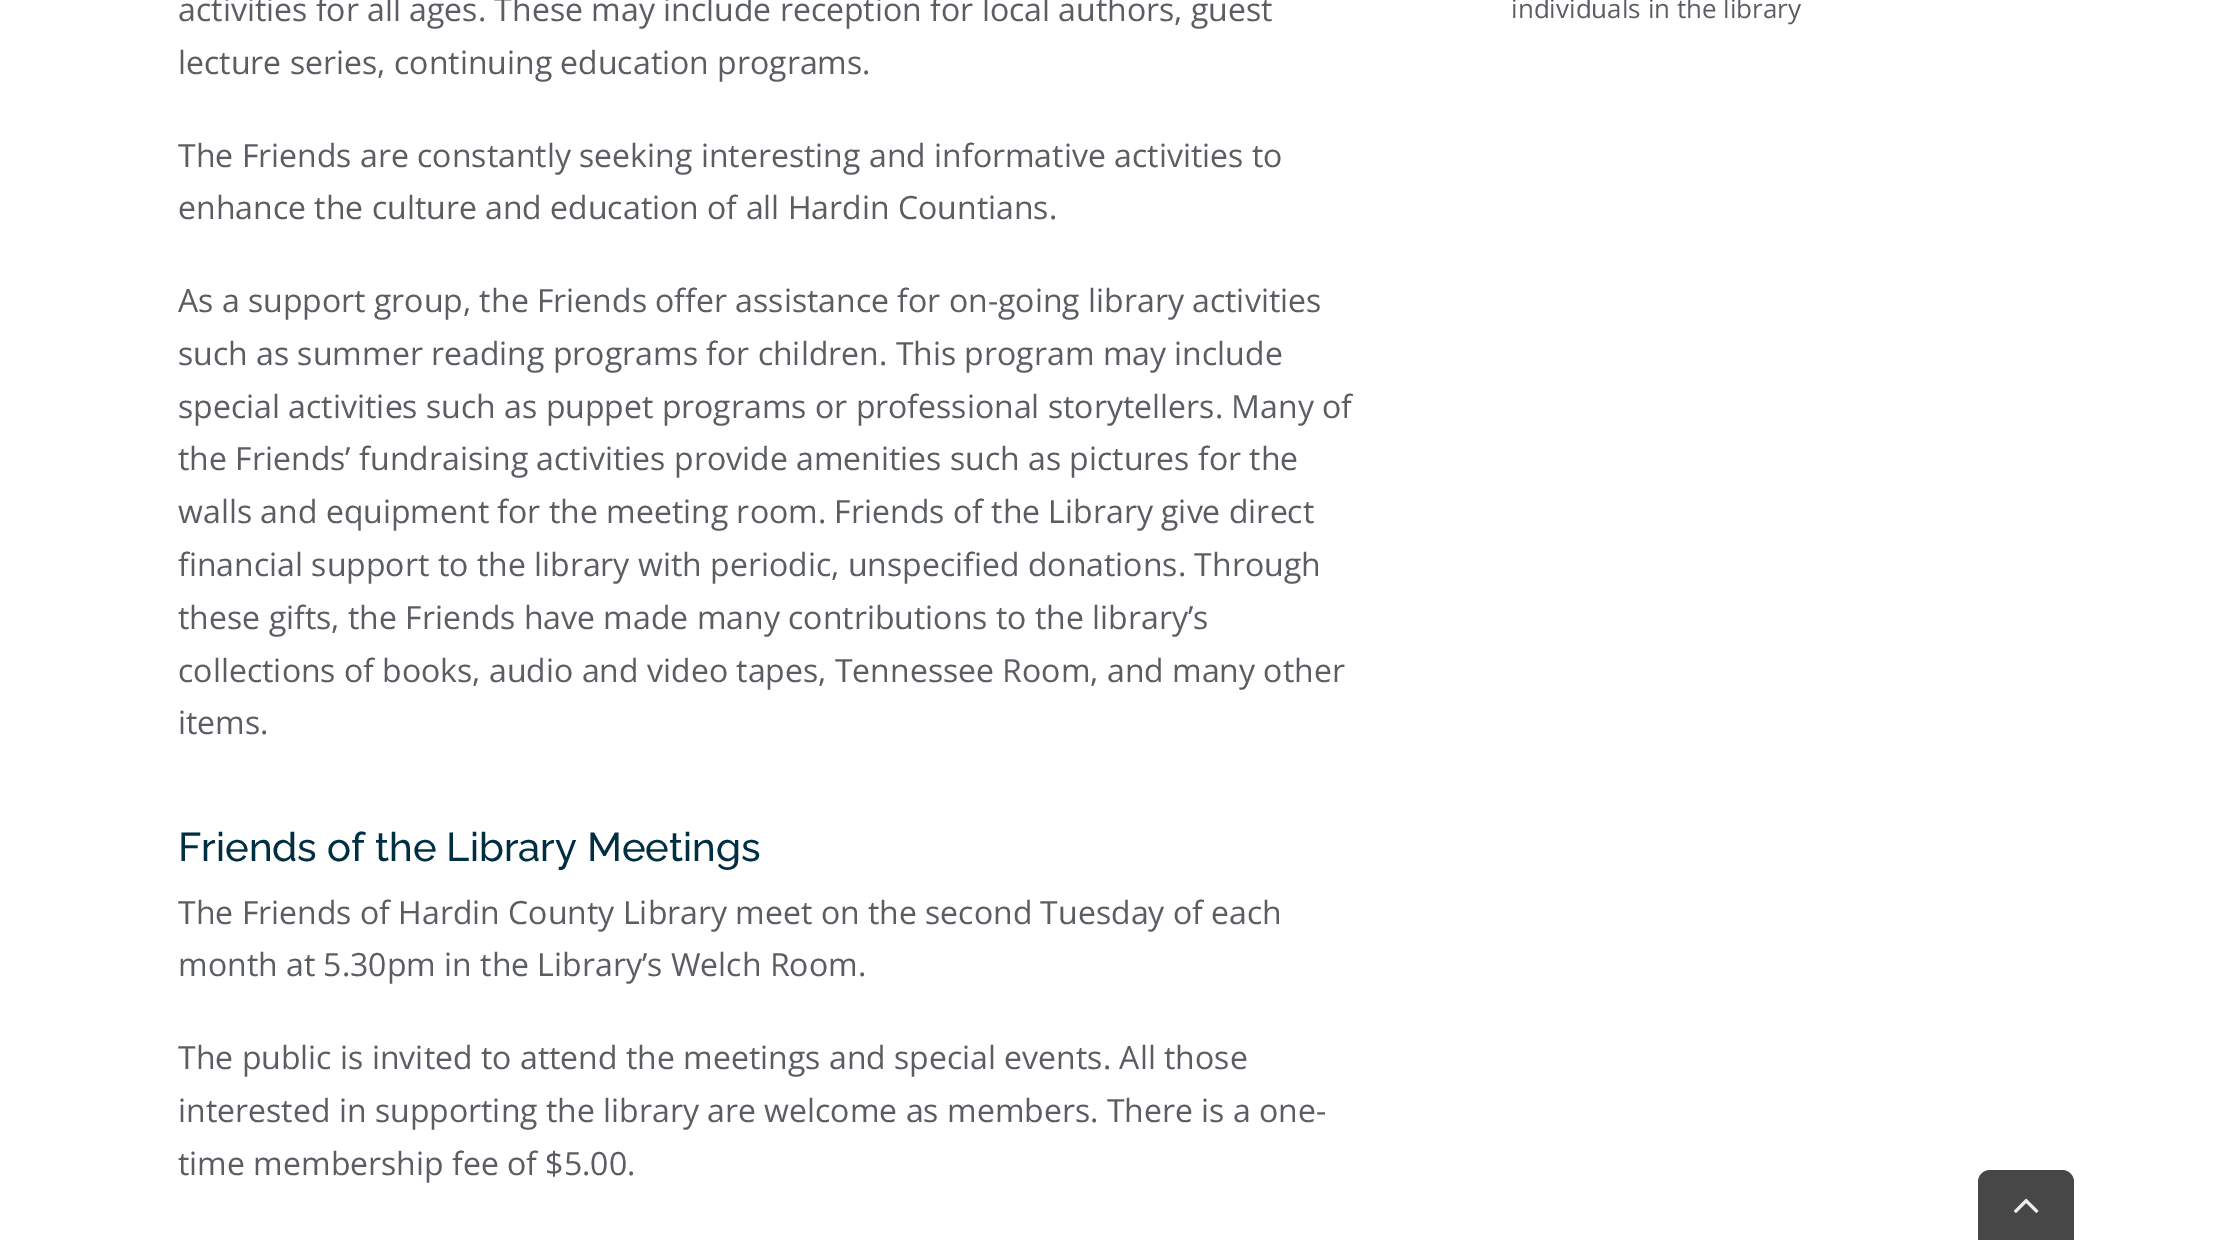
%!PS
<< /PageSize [2223 1240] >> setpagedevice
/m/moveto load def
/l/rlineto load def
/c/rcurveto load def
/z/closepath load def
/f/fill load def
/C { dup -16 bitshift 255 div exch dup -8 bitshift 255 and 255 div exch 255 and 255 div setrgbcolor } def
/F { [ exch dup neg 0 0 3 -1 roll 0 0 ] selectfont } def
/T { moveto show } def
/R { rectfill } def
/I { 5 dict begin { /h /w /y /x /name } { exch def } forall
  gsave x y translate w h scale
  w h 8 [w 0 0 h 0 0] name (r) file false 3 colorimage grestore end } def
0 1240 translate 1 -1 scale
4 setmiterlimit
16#FFFFFF C
0 0 2223 1240 R
/OpenSans-Regular 32 F
16#5A5D62 C
(activities for all ages. These may include reception for local authors, guest) 178 21 T
(lecture series, continuing education programs.) 178 74 T
(The Friends are constantly seeking interesting and informative activities to) 178 167 T
(enhance the culture and education of all Hardin Countians.) 178 219 T
(As a support group, the Friends offer assistance for on-going library activities) 178 312 T
(such as summer reading programs for children. This program may include) 178 365 T
(special activities such as puppet programs or professional storytellers. Many of) 178 418 T
(the Friends’ fundraising activities provide amenities such as pictures for the) 178 470 T
(walls and equipment for the meeting room. Friends of the Library give direct) 178 523 T
(financial support to the library with periodic, unspecified donations. Through) 178 576 T
(these gifts, the Friends have made many contributions to the library’s) 178 629 T
(collections of books, audio and video tapes, Tennessee Room, and many other) 178 682 T
(items.) 178 734 T
/Raleway-Thin 40 F
16#002F43 C
(Friends of the Library Meetings) 178 861 T
/OpenSans-Regular 32 F
16#5A5D62 C
(The Friends of Hardin County Library meet on the second Tuesday of each) 178 924 T
(month at 5.30pm in the Library’s Welch Room.) 178 976 T
(The public is invited to attend the meetings and special events. All those) 178 1069 T
(interested in supporting the library are welcome as members. There is a one-) 178 1122 T
(time membership fee of $5.00.) 178 1175 T
/OpenSans-Regular 26 F
(individuals in the library) 1511 18 T
16#474747 C
1990 1170 m 72 0 l 6.5 0 12 5.5 12 12 c 0 58 l -96 0 l 0 -58 l 0 -6.5 5.5 -12 12 -12 c z f
(1.rgb) 2014 1198 25 15 I
showpage
